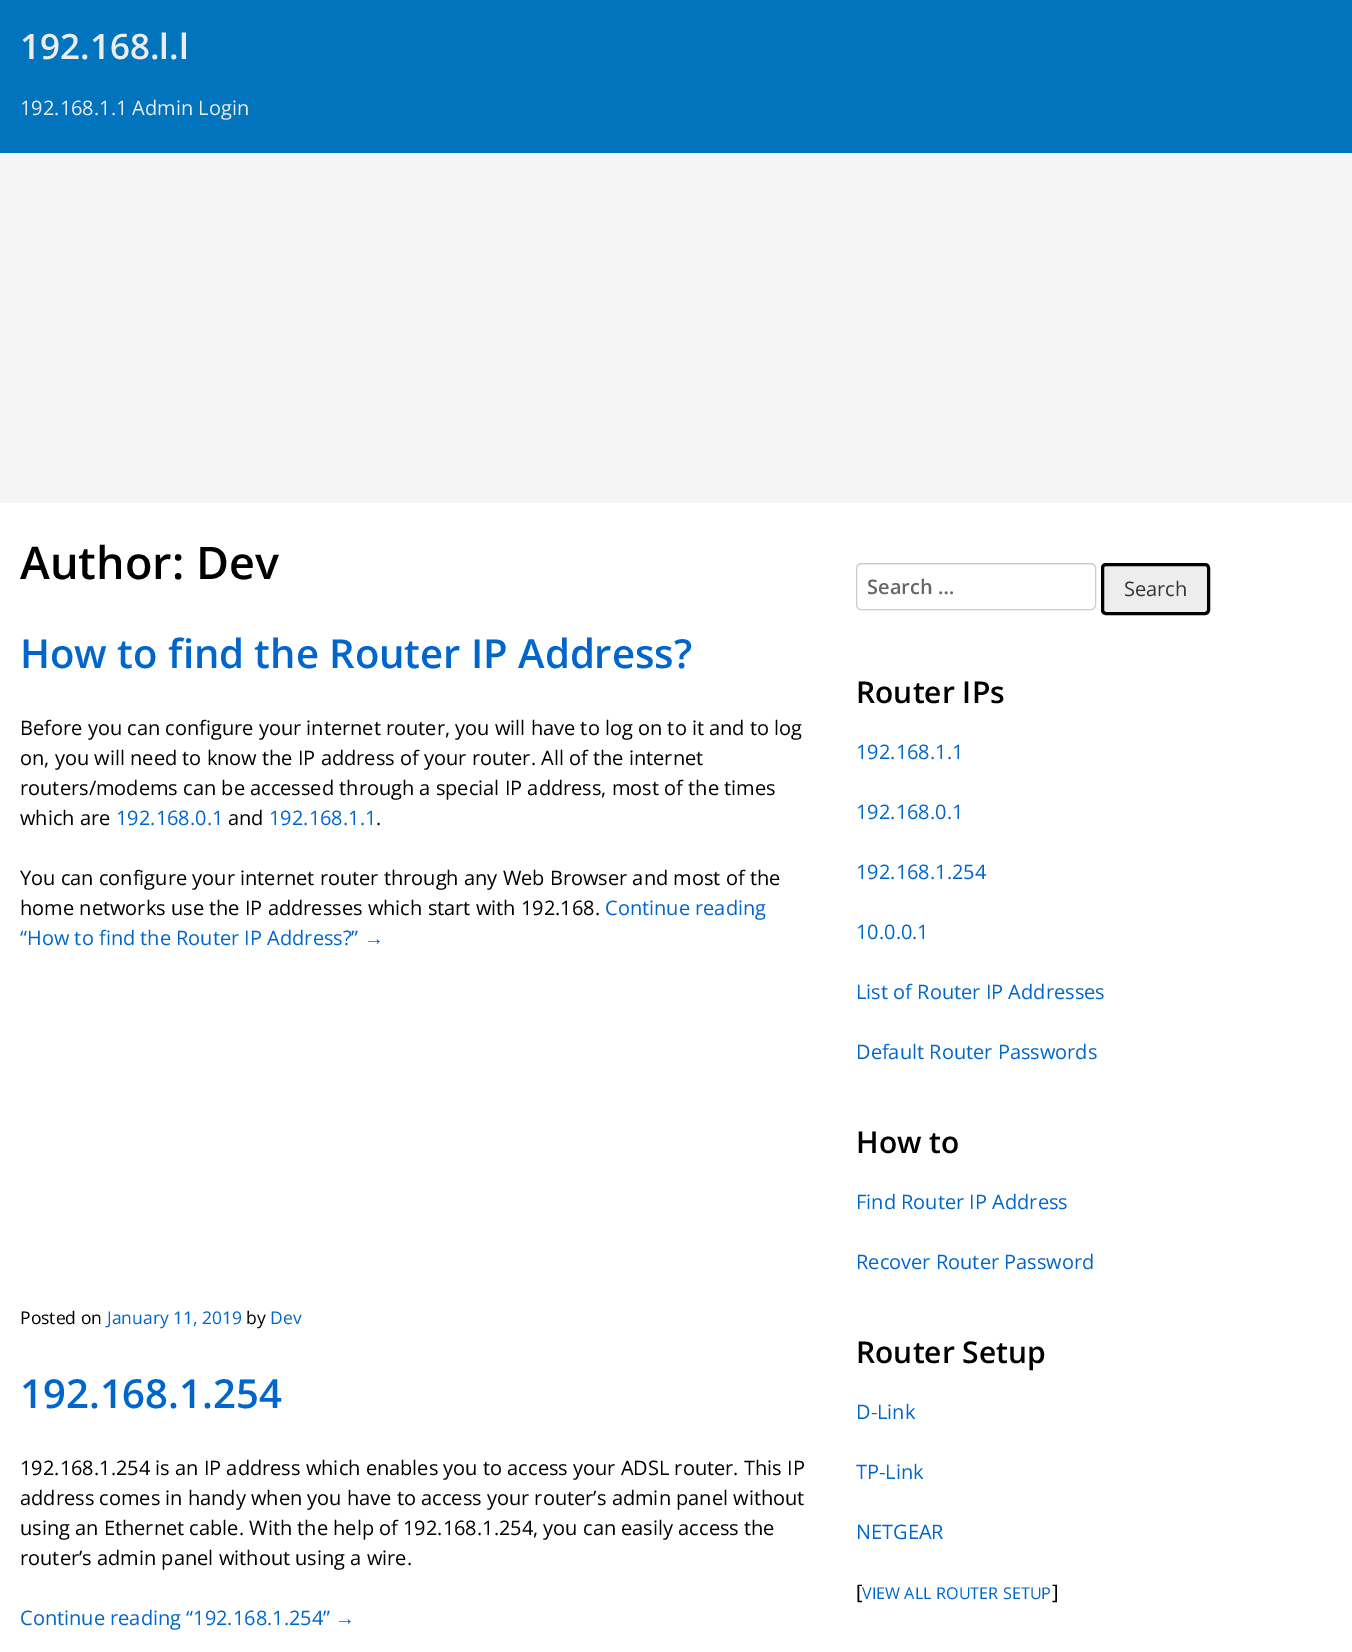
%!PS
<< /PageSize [1352 1652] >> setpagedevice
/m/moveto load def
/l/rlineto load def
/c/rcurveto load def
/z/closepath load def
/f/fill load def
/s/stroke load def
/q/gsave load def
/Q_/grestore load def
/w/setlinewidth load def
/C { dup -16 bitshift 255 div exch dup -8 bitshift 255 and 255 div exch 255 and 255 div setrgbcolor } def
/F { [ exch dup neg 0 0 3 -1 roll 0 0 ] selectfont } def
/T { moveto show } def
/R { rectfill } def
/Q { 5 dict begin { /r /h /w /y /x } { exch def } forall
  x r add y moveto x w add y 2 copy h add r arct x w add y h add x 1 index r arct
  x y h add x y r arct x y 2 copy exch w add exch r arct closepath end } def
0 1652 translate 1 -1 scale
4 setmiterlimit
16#F5F5F5 C
0 0 1352 1652 R
16#0274BE C
0 0 1352 153 R
/OpenSans-SemiBold 35 F
16#EDEDED C
(192.168.l.l) 20 59 T
/OpenSans-Regular 20 F
(192.168.1.1 Admin Login) 20 115 T
16#FFFFFF C
0 503 1352 1149 R
/OpenSans-SemiBold 45 F
16#000000 C
(Author: Dev) 20 579 T
/OpenSans-SemiBold 40 F
16#0066CC C
(How to find the Router IP Address?) 20 668 T
/OpenSans-Regular 20 F
16#000000 C
(Before you can configure your internet router, you will have to log on to it and to log) 20 735 T
(on, you will need to know the IP address of your router. All of the internet) 20 765 T
(routers/modems can be accessed through a special IP address, most of the times) 20 795 T
(which are) 20 825 T
16#0066CC C
(192.168.0.1) 116 825 T
16#000000 C
(and) 228 825 T
16#0066CC C
(192.168.1.1) 269 825 T
16#000000 C
(.) 376 825 T
(You can configure your internet router through any Web Browser and most of the) 20 885 T
(home networks use the IP addresses which start with 192.168.) 20 915 T
16#0066CC C
(Continue reading) 605 915 T
(“How to find the Router IP Address?”) 20 945 T
/LiberationSans-Regular 20 F
(→) 364 945 T
/OpenSans-Regular 17.5 F
16#000000 C
(Posted on) 20 1324 T
16#0066CC C
(January 11, 2019) 107 1324 T
16#000000 C
(by) 246 1324 T
16#0066CC C
(Dev) 270 1324 T
/OpenSans-SemiBold 40 F
(192.168.1.254) 20 1408 T
/OpenSans-Regular 20 F
16#000000 C
(192.168.1.254 is an IP address which enables you to access your ADSL router. This IP) 20 1475 T
(address comes in handy when you have to access your router’s admin panel without) 20 1505 T
(using an Ethernet cable. With the help of 192.168.1.254, you can easily access the) 20 1535 T
(router’s admin panel without using a wire.) 20 1565 T
16#0066CC C
(Continue reading “192.168.1.254”) 20 1625 T
/LiberationSans-Regular 20 F
(→) 335 1625 T
16#ECECEC C
861 565 m 230 0 l 2 0 4 2 4 4 c 0 -3 -1 -5 -4 -5 c -229 0 l -3 0 -4 2 -4 5 c 0 -2 1 -4 3 -4 c z f
16#CCCCCC C
856.5 563.5 239 46 4.5 Q s
/OpenSans-SemiBold 20 F
16#666666 C
(Search …) 867 594 T
16#EDEDED C
1102.5 564.5 106 49 3.5 Q q f Q_
16#000000 C
3 w
s
/OpenSans-Regular 20 F
16#333333 C
(Search) 1124 596 T
/OpenSans-SemiBold 30 F
16#000000 C
(Router IPs) 856 703 T
/OpenSans-Regular 20 F
16#0066CC C
(192.168.1.1) 856 759 T
(192.168.0.1) 856 819 T
(192.168.1.254) 856 879 T
(10.0.0.1) 856 939 T
(List of Router IP Addresses) 856 999 T
(Default Router Passwords) 856 1059 T
/OpenSans-SemiBold 30 F
16#000000 C
(How to) 856 1153 T
/OpenSans-Regular 20 F
16#0066CC C
(Find Router IP Address) 856 1209 T
(Recover Router Password) 856 1269 T
/OpenSans-SemiBold 30 F
16#000000 C
(Router Setup) 856 1363 T
/OpenSans-Regular 20 F
16#0066CC C
(D-Link) 856 1419 T
(TP-Link) 856 1479 T
(NETGEAR) 856 1539 T
16#000000 C
([) 856 1599 T
/OpenSans-Regular 16.25 F
16#0066CC C
(VIEW ALL ROUTER SETUP) 862 1599 T
/OpenSans-Regular 20 F
16#000000 C
(]) 1052 1599 T
showpage
